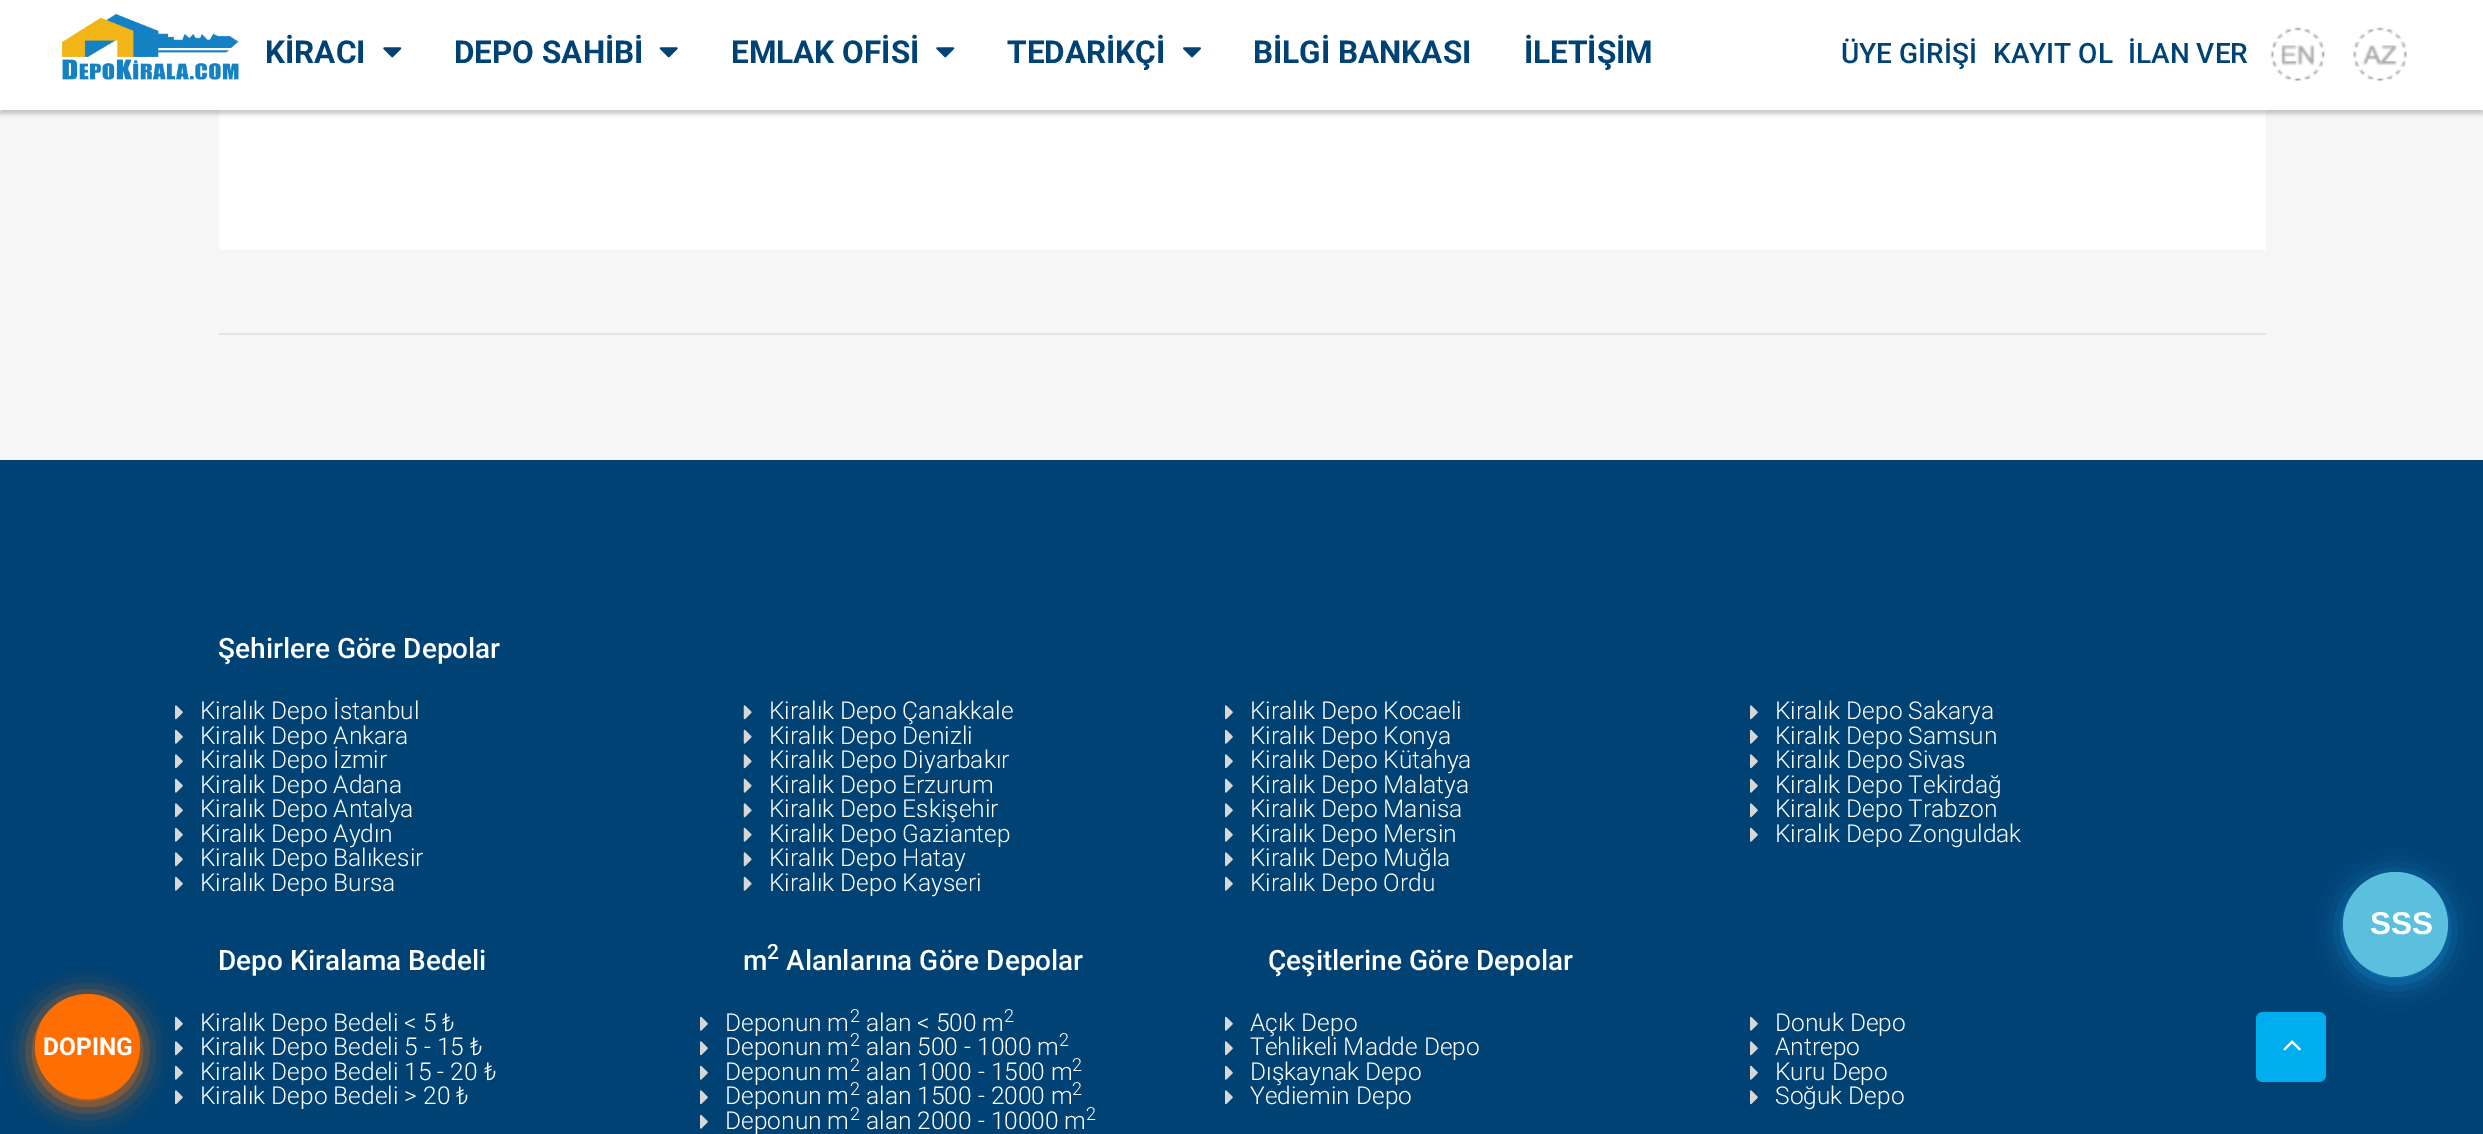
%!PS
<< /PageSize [2483 1134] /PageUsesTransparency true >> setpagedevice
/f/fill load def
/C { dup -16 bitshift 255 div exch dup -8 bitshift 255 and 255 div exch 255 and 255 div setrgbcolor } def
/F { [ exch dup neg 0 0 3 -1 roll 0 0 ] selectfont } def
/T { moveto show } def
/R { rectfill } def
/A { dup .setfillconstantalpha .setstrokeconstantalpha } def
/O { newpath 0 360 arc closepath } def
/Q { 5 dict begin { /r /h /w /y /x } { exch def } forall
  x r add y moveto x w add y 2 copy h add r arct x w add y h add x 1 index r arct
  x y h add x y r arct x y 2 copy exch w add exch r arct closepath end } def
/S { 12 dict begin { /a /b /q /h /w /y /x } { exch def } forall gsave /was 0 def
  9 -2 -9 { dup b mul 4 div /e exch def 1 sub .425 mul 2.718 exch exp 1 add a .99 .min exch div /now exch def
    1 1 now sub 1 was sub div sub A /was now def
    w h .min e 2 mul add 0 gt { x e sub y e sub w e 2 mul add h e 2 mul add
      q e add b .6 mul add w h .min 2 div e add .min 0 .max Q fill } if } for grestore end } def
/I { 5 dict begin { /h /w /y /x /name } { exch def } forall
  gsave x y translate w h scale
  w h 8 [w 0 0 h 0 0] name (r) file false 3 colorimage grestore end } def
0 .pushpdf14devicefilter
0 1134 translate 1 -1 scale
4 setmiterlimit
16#F6F6F6 C
0 0 2483 1134 R
16#FFFFFF C
219 110 2047 140 R
16#000000 C
0 4 2483 110 0 2 .2 S
16#FFFFFF C
0 0 2483 110 R
(1.rgb) 62 13 177 67 I
/Roboto-Bold 31.5 F
16#004274 C
(KİRACI) 265 63 T
(2.rgb) 383 47 19 11 I
(DEPO SAHİBİ) 454 63 T
(3.rgb) 659 47 19 11 I
(EMLAK OFİSİ) 731 63 T
(4.rgb) 936 47 19 11 I
(TEDARİKÇİ) 1007 63 T
(5.rgb) 1183 47 18 11 I
(BİLGİ BANKASI) 1253 63 T
(İLETİŞİM) 1524 63 T
/Roboto-Medium 28 F
(ÜYE GİRİŞİ) 1841 63 T
(KAYIT OL) 1993 63 T
(İLAN VER) 2128 63 T
(6.rgb) 2270 27 55 54 I
(7.rgb) 2352 27 55 54 I
16#E4E4E4 C
219 333 2047 2 R
16#004274 C
0 460 2483 674 R
16#FFFFFF C
(Şehirlere Göre Depolar) 218 658 T
(8.rgb) 175 705 8 15 I
/Roboto-Light 24.5 F
(Kiralık Depo İstanbul) 200 719 T
(9.rgb) 175 729 8 15 I
(Kiralık Depo Ankara) 200 744 T
(8.rgb) 175 754 8 15 I
(Kiralık Depo İzmir) 200 768 T
(9.rgb) 175 778 8 15 I
(Kiralık Depo Adana) 200 793 T
(8.rgb) 175 803 8 15 I
(Kiralık Depo Antalya) 200 817 T
(9.rgb) 175 827 8 15 I
(Kiralık Depo Aydın) 200 842 T
(8.rgb) 175 852 8 15 I
(Kiralık Depo Balıkesir) 200 866 T
(9.rgb) 175 876 8 15 I
(Kiralık Depo Bursa) 200 891 T
(10.rgb) 743 705 9 15 I
(Kiralık Depo Çanakkale) 769 719 T
(11.rgb) 743 729 9 15 I
(Kiralık Depo Denizli) 769 744 T
(10.rgb) 743 754 9 15 I
(Kiralık Depo Diyarbakır) 769 768 T
(11.rgb) 743 778 9 15 I
(Kiralık Depo Erzurum) 769 793 T
(10.rgb) 743 803 9 15 I
(Kiralık Depo Eskişehir) 769 817 T
(11.rgb) 743 827 9 15 I
(Kiralık Depo Gaziantep) 769 842 T
(10.rgb) 743 852 9 15 I
(Kiralık Depo Hatay) 769 866 T
(11.rgb) 743 876 9 15 I
(Kiralık Depo Kayseri) 769 891 T
(8.rgb) 1225 705 8 15 I
(Kiralık Depo Kocaeli) 1250 719 T
(9.rgb) 1225 729 8 15 I
(Kiralık Depo Konya) 1250 744 T
(8.rgb) 1225 754 8 15 I
(Kiralık Depo Kütahya) 1250 768 T
(9.rgb) 1225 778 8 15 I
(Kiralık Depo Malatya) 1250 793 T
(8.rgb) 1225 803 8 15 I
(Kiralık Depo Manisa) 1250 817 T
(9.rgb) 1225 827 8 15 I
(Kiralık Depo Mersin) 1250 842 T
(8.rgb) 1225 852 8 15 I
(Kiralık Depo Muğla) 1250 866 T
(9.rgb) 1225 876 8 15 I
(Kiralık Depo Ordu) 1250 891 T
(8.rgb) 1750 705 8 15 I
(Kiralık Depo Sakarya) 1775 719 T
(9.rgb) 1750 729 8 15 I
(Kiralık Depo Samsun) 1775 744 T
(8.rgb) 1750 754 8 15 I
(Kiralık Depo Sivas) 1775 768 T
(9.rgb) 1750 778 8 15 I
(Kiralık Depo Tekirdağ) 1775 793 T
(8.rgb) 1750 803 8 15 I
(Kiralık Depo Trabzon) 1775 817 T
(9.rgb) 1750 827 8 15 I
(Kiralık Depo Zonguldak) 1775 842 T
/Roboto-Medium 28 F
(Depo Kiralama Bedeli) 218 970 T
(9.rgb) 175 1016 8 15 I
/Roboto-Light 24.5 F
(Kiralık Depo Bedeli < 5 ₺) 200 1031 T
(8.rgb) 175 1041 8 15 I
(Kiralık Depo Bedeli 5 - 15 ₺) 200 1055 T
(9.rgb) 175 1065 8 15 I
(Kiralık Depo Bedeli 15 - 20 ₺) 200 1080 T
(8.rgb) 175 1090 8 15 I
(Kiralık Depo Bedeli > 20 ₺) 200 1104 T
/Roboto-Medium 28 F
(m) 743 970 T
/Roboto-Medium 21 F
(2) 767 959 T
/Roboto-Medium 28 F
(Alanlarına Göre Depolar) 786 970 T
(9.rgb) 700 1016 8 15 I
/Roboto-Light 24.5 F
(Deponun m) 725 1031 T
/Roboto-Light 18 F
(2) 850 1022 T
/Roboto-Light 24.5 F
(alan < 500 m) 866 1031 T
/Roboto-Light 18 F
(2) 1004 1022 T
(8.rgb) 700 1041 8 15 I
/Roboto-Light 24.5 F
(Deponun m) 725 1055 T
/Roboto-Light 18 F
(2) 850 1046 T
/Roboto-Light 24.5 F
(alan 500 - 1000 m) 866 1055 T
/Roboto-Light 18 F
(2) 1059 1046 T
(9.rgb) 700 1065 8 15 I
/Roboto-Light 24.5 F
(Deponun m) 725 1080 T
/Roboto-Light 18 F
(2) 850 1071 T
/Roboto-Light 24.5 F
(alan 1000 - 1500 m) 866 1080 T
/Roboto-Light 18 F
(2) 1072 1071 T
(8.rgb) 700 1090 8 15 I
/Roboto-Light 24.5 F
(Deponun m) 725 1104 T
/Roboto-Light 18 F
(2) 850 1095 T
/Roboto-Light 24.5 F
(alan 1500 - 2000 m) 866 1104 T
/Roboto-Light 18 F
(2) 1072 1095 T
(9.rgb) 700 1114 8 15 I
/Roboto-Light 24.5 F
(Deponun m) 725 1129 T
/Roboto-Light 18 F
(2) 850 1120 T
/Roboto-Light 24.5 F
(alan 2000 - 10000 m) 866 1129 T
/Roboto-Light 18 F
(2) 1086 1120 T
/Roboto-Medium 28 F
(Çeşitlerine Göre Depolar) 1268 970 T
(9.rgb) 1225 1016 8 15 I
/Roboto-Light 24.5 F
(Açık Depo) 1250 1031 T
(8.rgb) 1225 1041 8 15 I
(Tehlikeli Madde Depo) 1250 1055 T
(9.rgb) 1225 1065 8 15 I
(Dışkaynak Depo) 1250 1080 T
(8.rgb) 1225 1090 8 15 I
(Yediemin Depo) 1250 1104 T
(9.rgb) 1750 1016 8 15 I
(Donuk Depo) 1775 1031 T
(8.rgb) 1750 1041 8 15 I
(Antrepo) 1775 1055 T
(9.rgb) 1750 1065 8 15 I
(Kuru Depo) 1775 1080 T
(8.rgb) 1750 1090 8 15 I
(Soğuk Depo) 1775 1104 T
16#00AEEF C
2256 1012 70 70 7 Q f
16#1481C4 C
2343 877 105 105 52.5 13 1 S
16#5BC0DE C
2395.5 924.5 52.5 O f
/LiberationSans-Bold 31.5 F
16#FFFFFF C
(SSS) 2370 934 T
16#FF6E00 C
35 999 105 105 52.5 13 1 S
87.5 1046.5 52.5 O f
/Roboto-Bold 24.5 F
16#FFFFFF C
(DOPING) 43 1055 T
(12.rgb) 2283 1040 18 11 I
.poppdf14devicefilter showpage
